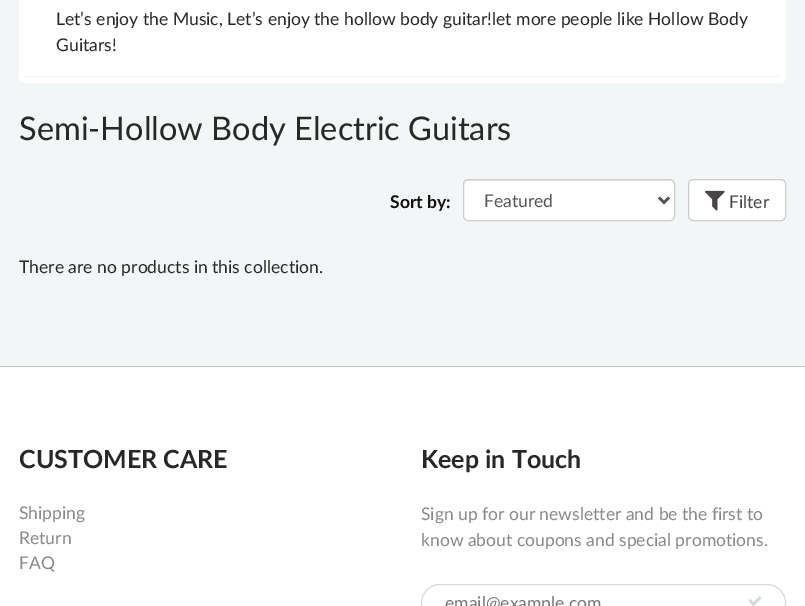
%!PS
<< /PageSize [805 606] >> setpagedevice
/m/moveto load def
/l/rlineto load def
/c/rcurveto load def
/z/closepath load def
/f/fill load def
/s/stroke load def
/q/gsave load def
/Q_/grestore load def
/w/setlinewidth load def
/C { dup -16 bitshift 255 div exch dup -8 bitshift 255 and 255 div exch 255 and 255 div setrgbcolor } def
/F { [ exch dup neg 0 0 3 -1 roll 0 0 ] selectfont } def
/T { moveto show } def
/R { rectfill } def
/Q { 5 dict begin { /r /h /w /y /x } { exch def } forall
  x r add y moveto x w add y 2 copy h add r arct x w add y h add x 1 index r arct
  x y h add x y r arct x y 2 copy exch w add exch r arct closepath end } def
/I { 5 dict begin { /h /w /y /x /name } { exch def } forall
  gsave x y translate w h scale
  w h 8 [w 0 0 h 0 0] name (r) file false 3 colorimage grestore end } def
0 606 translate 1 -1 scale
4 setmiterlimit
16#FFFFFF C
0 0 805 606 R
16#F3F6F6 C
0 0 805 366 R
16#FFFFFF C
6 w
22 -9 761 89 3 Q s
25 0 755 76 R
/Lato-Regular 17.5 F
16#282827 C
(Let’s enjoy the Music, Let’s enjoy the hollow body guitar!let more people like Hollow Body) 56 25 T
(Guitars!) 56 51 T
/Lato-Regular 32.5 F
(Semi-Hollow Body Electric Guitars) 19 140 T
/Lato-Bold 17.5 F
16#100E0E C
(Sort by:) 390 208 T
16#FFFFFF C
463 179 212 42 5 Q f
16#ECECEC C
468 181 m 202 0 l 2 0 4 2 4 4 c 0 -1 l 0 -2 -2 -4 -4 -4 c -202 0 l -2 0 -4 2 -4 4 c 0 1 l 0 -2 1 -4 4 -4 c z f
16#CCCCCC C
1 w
463.5 179.5 211 41 4.5 Q s
16#555555 C
2.5 w
659 197.5 m 5 5 l 5 -5 l s
/Lato-Regular 17.5 F
(Featured) 484 207 T
16#FFFFFF C
688.5 179.5 97 41 4.5 Q q f Q_
16#CCCCCC C
1 w
s
(1.rgb) 705 190 20 21 I
16#474545 C
(Filter) 729 208 T
16#282827 C
(There are no products in this collection.) 19 273 T
16#C5C5B3 C
0 366 805 1 R
/Lato-Bold 25 F
16#282827 C
(CUSTOMER CARE) 19 468 T
/Lato-Regular 17.5 F
16#898989 C
(Shipping) 19 519 T
(Return) 19 544 T
(FAQ) 19 569 T
/Lato-Bold 25 F
16#282827 C
(Keep in Touch) 421 468 T
/Lato-Regular 17.5 F
16#898989 C
(Sign up for our newsletter and be the first to) 421 520 T
(know about coupons and special promotions.) 421 546 T
16#D7DBDB C
421.5 584.5 364 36 18 Q s
16#757575 C
(email@example.com) 445 609 T
(2.rgb) 748 596 14 10 I
showpage
